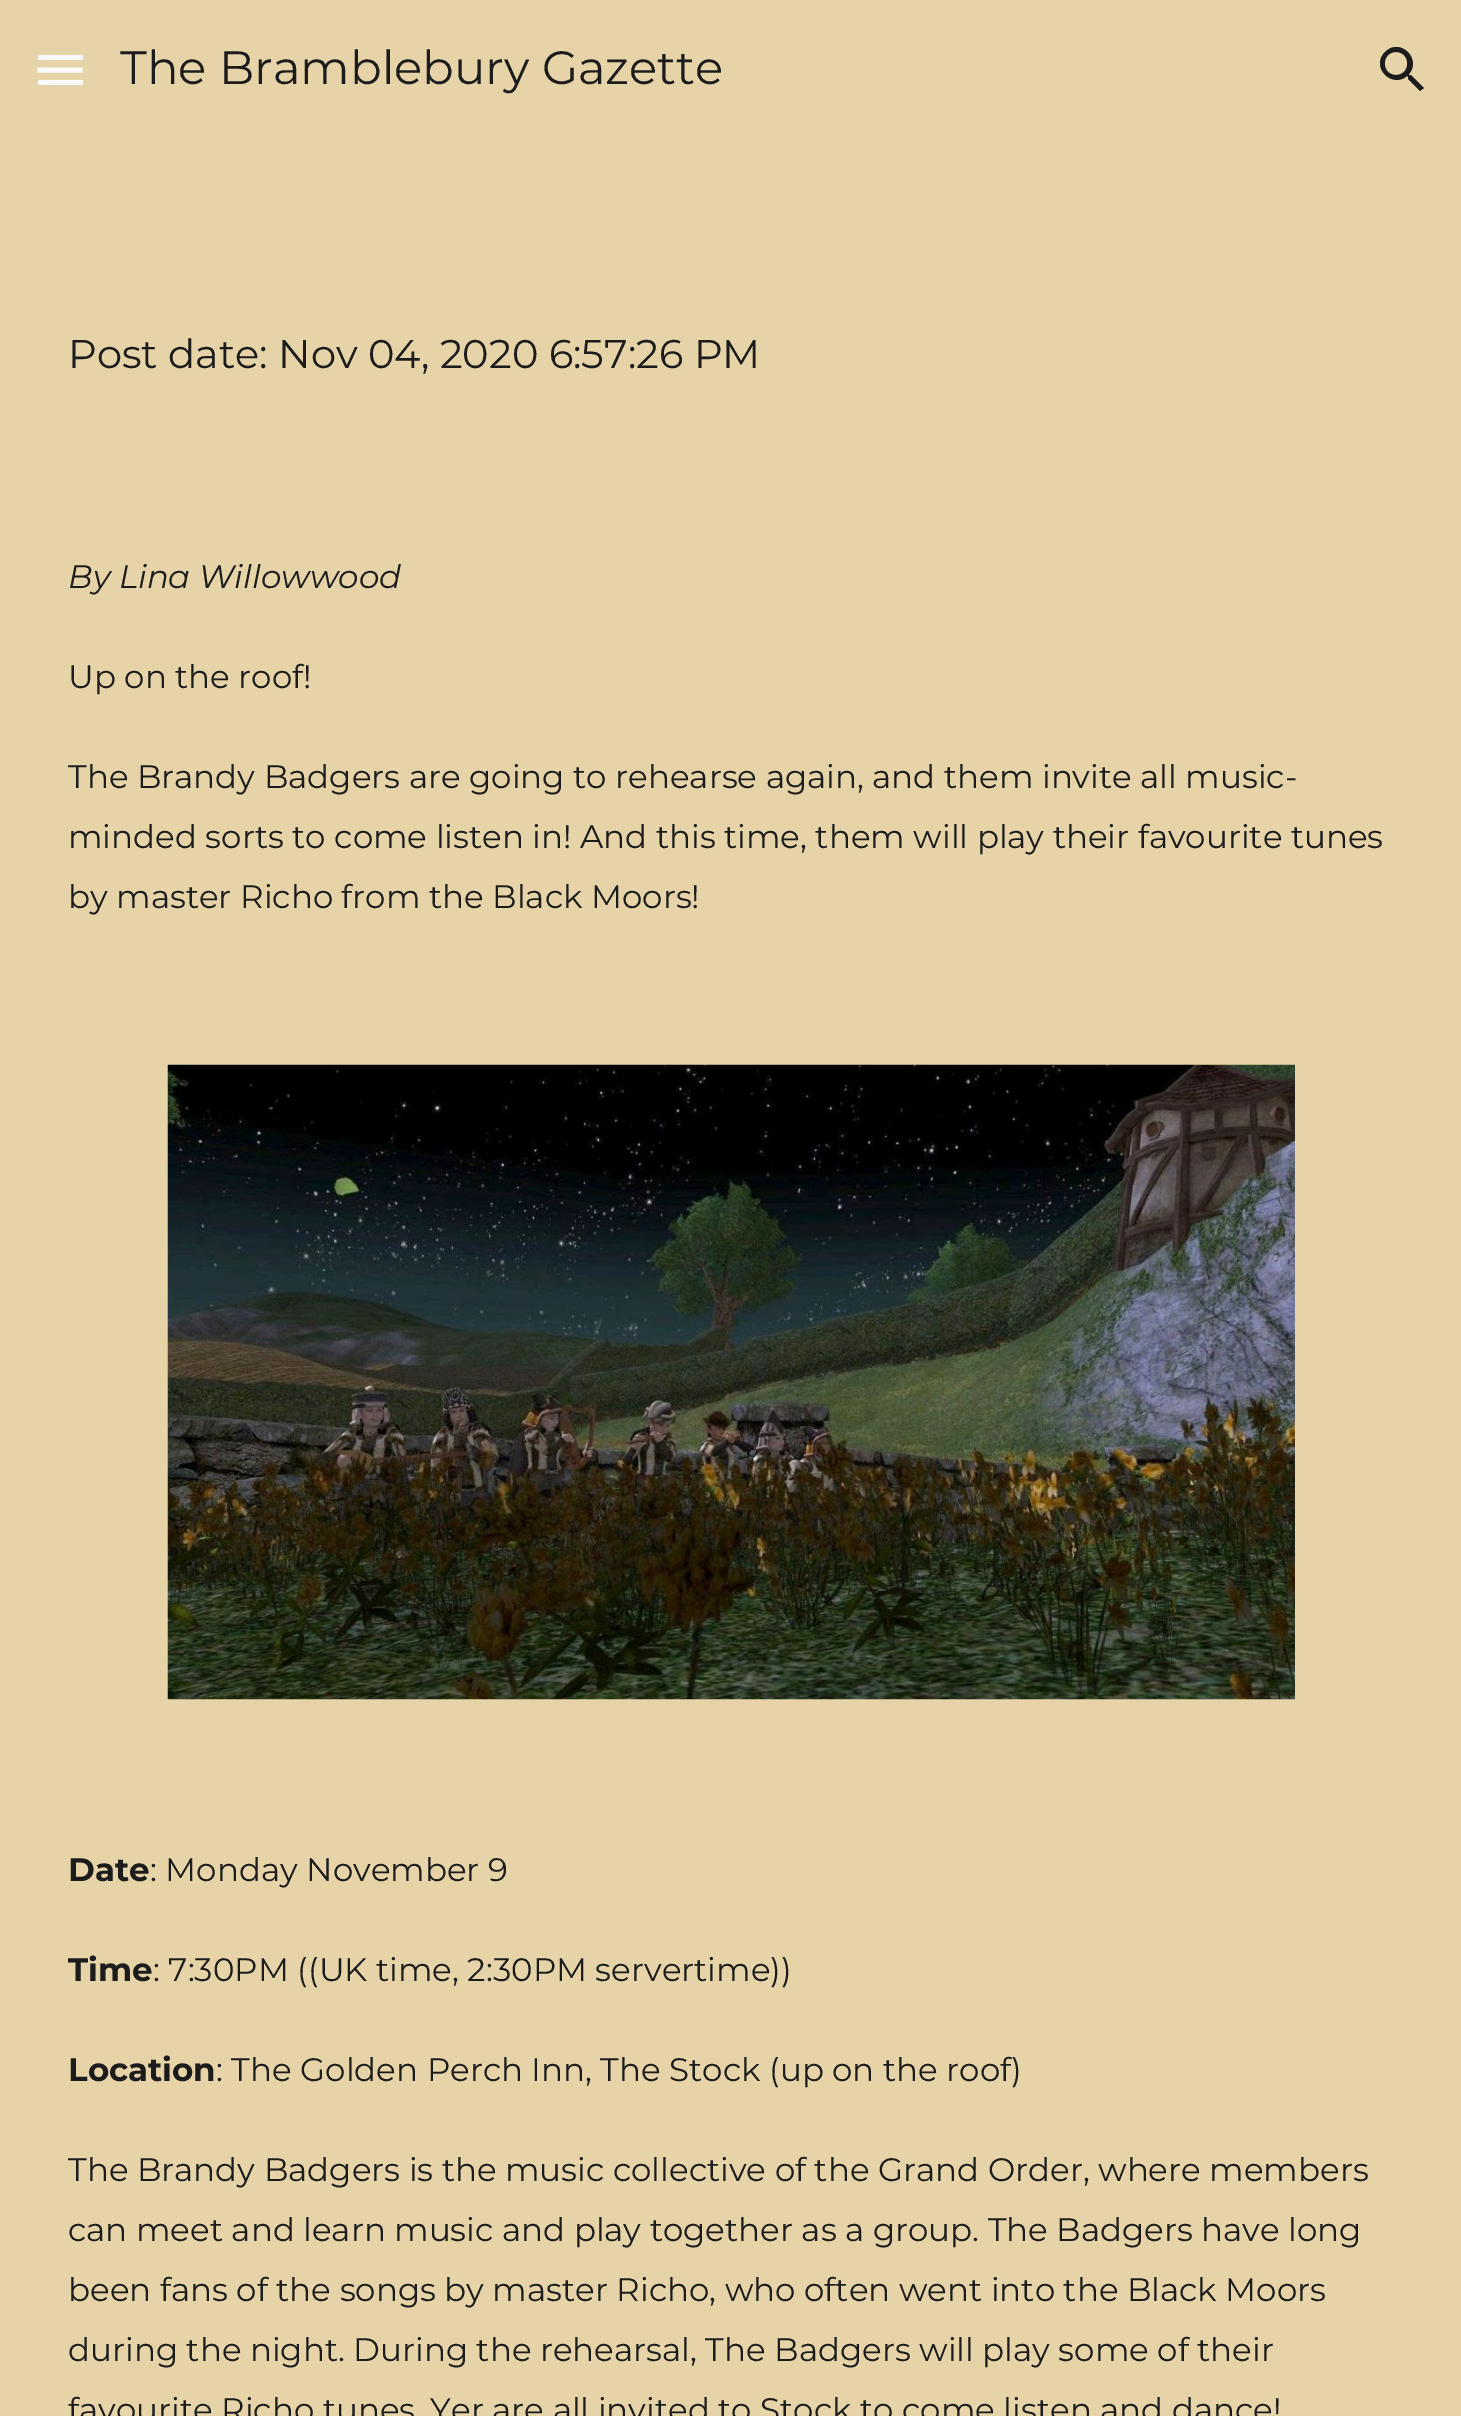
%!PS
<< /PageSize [1461 2416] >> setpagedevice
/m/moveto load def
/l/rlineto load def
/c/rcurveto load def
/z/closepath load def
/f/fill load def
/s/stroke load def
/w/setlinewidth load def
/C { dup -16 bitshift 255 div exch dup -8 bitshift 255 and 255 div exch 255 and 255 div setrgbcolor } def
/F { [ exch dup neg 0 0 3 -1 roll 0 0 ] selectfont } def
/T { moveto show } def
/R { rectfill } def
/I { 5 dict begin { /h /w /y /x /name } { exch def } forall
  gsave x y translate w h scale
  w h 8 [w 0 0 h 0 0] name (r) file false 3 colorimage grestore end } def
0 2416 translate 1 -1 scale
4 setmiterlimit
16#E6D3A7 C
0 0 1461 2416 R
16#F9F9F9 C
38 55 45 5 R
5 w
37.5 70 m 45 0 l s
38 80 45 5 R
/Montserrat-Regular 46.7 F
16#1C1C1C C
(The Bramblebury Gazette) 120 84 T
1411 75 m -2 0 l 0 -1 l 13 -15 -9 -37 -24 -22 c -15 15 7 37 22 24 c 1 1 l 0 2 l 12 12 l 4 -3 l z 1396 75 m -15 0 -15 -23 0 -23 c 15 0 15 23 0 23 c z f
/Montserrat-Regular 40 F
(Post date: Nov 04, 2020 6:57:26 PM) 68 368 T
/Montserrat-Italic 32.5 F
(By Lina Willowwood) 68 588 T
/Montserrat-Regular 32.5 F
(Up on the roof!) 68 688 T
(The Brandy Badgers are going to rehearse again, and them invite all music-) 68 788 T
(minded sorts to come listen in! And this time, them will play their favourite tunes) 68 848 T
(by master Richo from the Black Moors!) 68 908 T
(1.rgb) 167 1064 1128 636 I
/Montserrat-Bold 32.5 F
(Date) 68 1881 T
/Montserrat-Regular 32.5 F
(: Monday November 9) 150 1881 T
/Montserrat-Bold 32.5 F
(Time) 68 1981 T
/Montserrat-Regular 32.5 F
(: 7:30PM \(\(UK time, 2:30PM servertime\)\)) 153 1981 T
/Montserrat-Bold 32.5 F
(Location) 68 2081 T
/Montserrat-Regular 32.5 F
(: The Golden Perch Inn, The Stock \(up on the roof\)) 216 2081 T
(The Brandy Badgers is the music collective of the Grand Order, where members) 68 2181 T
(can meet and learn music and play together as a group. The Badgers have long) 68 2241 T
(been fans of the songs by master Richo, who often went into the Black Moors) 68 2301 T
(during the night. During the rehearsal, The Badgers will play some of their) 68 2361 T
(favourite Richo tunes. Yer are all invited to Stock to come listen and dance!) 68 2421 T
showpage
